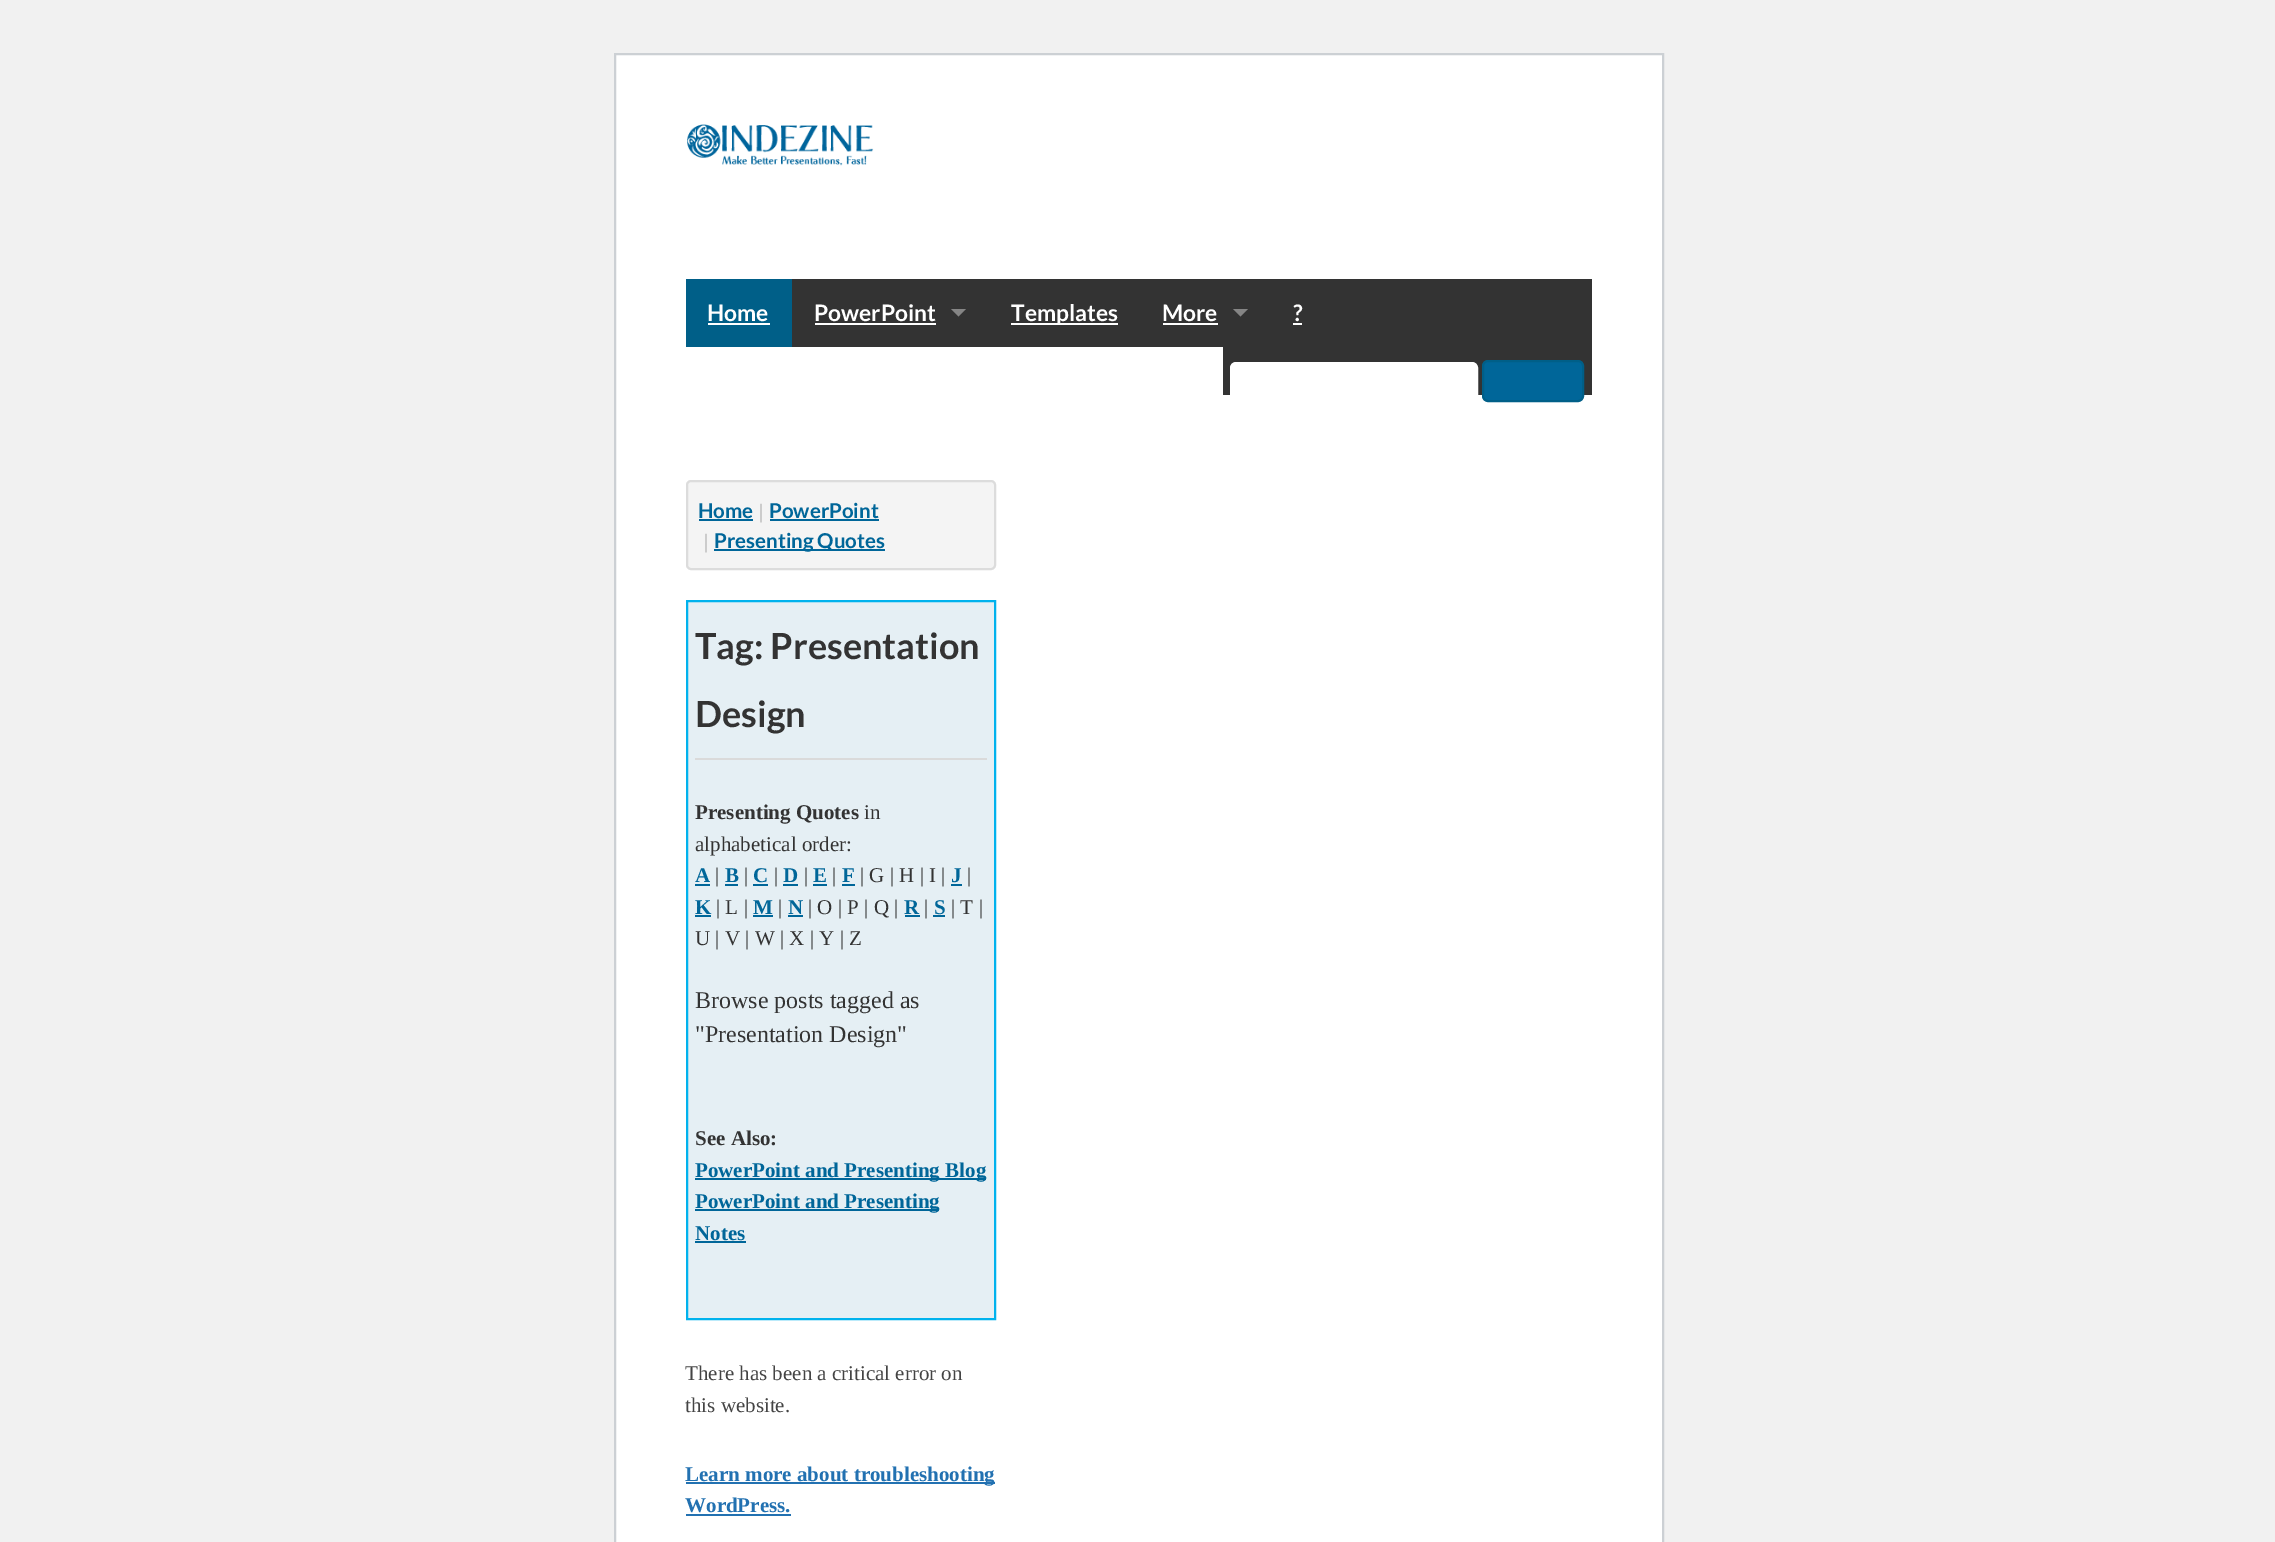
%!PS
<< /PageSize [2275 1542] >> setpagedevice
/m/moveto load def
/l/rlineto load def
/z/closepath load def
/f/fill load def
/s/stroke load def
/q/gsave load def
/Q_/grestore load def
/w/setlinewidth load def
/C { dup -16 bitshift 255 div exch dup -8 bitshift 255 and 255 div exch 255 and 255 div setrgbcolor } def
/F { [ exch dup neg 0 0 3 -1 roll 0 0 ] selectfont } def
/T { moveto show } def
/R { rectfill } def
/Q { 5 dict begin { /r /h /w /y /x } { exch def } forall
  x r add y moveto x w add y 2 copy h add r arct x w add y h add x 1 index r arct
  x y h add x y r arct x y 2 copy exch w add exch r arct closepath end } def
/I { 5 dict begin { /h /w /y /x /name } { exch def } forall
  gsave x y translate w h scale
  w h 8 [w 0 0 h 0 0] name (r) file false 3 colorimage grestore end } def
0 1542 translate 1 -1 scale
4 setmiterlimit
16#F1F1F1 C
0 0 2275 1542 R
16#FFFFFF C
615 54 m 1048 0 l 0 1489 l -1048 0 l z q f Q_
16#CCD0D4 C
2 w
s
(1.rgb) 687 124 187 42 I
16#333333 C
792 279 800 68 R
16#005F88 C
686 279 106 68 R
/Lato-Bold 22.75 F
16#FFFFFF C
(Home) 707 321 T
708 323 62 2 R
(PowerPoint) 814 321 T
815 323 121 2 R
16#858585 C
951 309 m 15 0 l -7.5 7.5 l z f
16#FFFFFF C
1011 323 107 2 R
(Templates) 1011 321 T
(More) 1162 321 T
1163 323 55 2 R
16#858585 C
1233 309 m 15 0 l -7.5 7.5 l z f
16#FFFFFF C
(?) 1293 321 T
1293 323 9 2 R
16#333333 C
1223 347 369 48 R
16#FFFFFF C
1231 363 246 37 5 Q q f Q_
s
16#006699 C
1483 361 100 40 5 Q q f Q_
16#005F88 C
s
16#F4F4F4 C
687 481 308 88 4 Q q f Q_
16#DCDCDC C
s
/Lato-Bold 20.5 F
16#006699 C
(Home) 698 518 T
699 519 54 2 R
/LiberationSerif-Regular 20.5 F
16#AAAAAA C
(|) 759 518 T
/Lato-Bold 20.5 F
16#006699 C
(PowerPoint) 769 518 T
770 519 109 2 R
/LiberationSerif-Regular 20.5 F
16#AAAAAA C
(|) 704 548 T
16#006699 C
714 549 171 2 R
/Lato-Bold 20.5 F
(Presenting Quotes) 714 548 T
16#E5EFF4 C
687 601 m 308 0 l 0 718 l -308 0 l z q f Q_
16#00B2ED C
s
16#DADADA C
695 758 292 2 R
/Lato-Bold 36 F
16#333333 C
(Tag: Presentation) 695 659 T
(Design) 695 727 T
/LiberationSerif-Bold 21 F
(Presenting Quotes) 695 819 T
/LiberationSerif-Regular 21 F
(in) 864 819 T
(alphabetical order:) 695 851 T
/LiberationSerif-Bold 21 F
16#006699 C
(A) 695 882 T
695 884 15 2 R
/LiberationSerif-Regular 21 F
16#333333 C
(|) 715 882 T
/LiberationSerif-Bold 21 F
16#006699 C
(B) 725 882 T
725 884 13 2 R
/LiberationSerif-Regular 21 F
16#333333 C
(|) 744 882 T
/LiberationSerif-Bold 21 F
16#006699 C
(C) 753 882 T
753 884 15 2 R
/LiberationSerif-Regular 21 F
16#333333 C
(|) 774 882 T
/LiberationSerif-Bold 21 F
16#006699 C
(D) 783 882 T
783 884 15 2 R
/LiberationSerif-Regular 21 F
16#333333 C
(|) 804 882 T
/LiberationSerif-Bold 21 F
16#006699 C
(E) 813 882 T
813 884 14 2 R
/LiberationSerif-Regular 21 F
16#333333 C
(|) 832 882 T
/LiberationSerif-Bold 21 F
16#006699 C
(F) 842 882 T
842 884 13 2 R
/LiberationSerif-Regular 21 F
16#333333 C
(| G | H | I |) 860 882 T
/LiberationSerif-Bold 21 F
16#006699 C
(J) 951 882 T
951 884 11 2 R
/LiberationSerif-Regular 21 F
16#333333 C
(|) 967 882 T
/LiberationSerif-Bold 21 F
16#006699 C
(K) 695 914 T
695 915 16 2 R
/LiberationSerif-Regular 21 F
16#333333 C
(| L |) 716 914 T
/LiberationSerif-Bold 21 F
16#006699 C
(M) 753 914 T
753 915 20 2 R
/LiberationSerif-Regular 21 F
16#333333 C
(|) 778 914 T
/LiberationSerif-Bold 21 F
16#006699 C
(N) 788 914 T
788 915 15 2 R
/LiberationSerif-Regular 21 F
16#333333 C
(| O | P | Q |) 808 914 T
/LiberationSerif-Bold 21 F
16#006699 C
(R) 904 914 T
905 915 15 2 R
/LiberationSerif-Regular 21 F
16#333333 C
(|) 924 914 T
/LiberationSerif-Bold 21 F
16#006699 C
(S) 934 914 T
933 915 12 2 R
/LiberationSerif-Regular 21 F
16#333333 C
(| T |) 951 914 T
(U | V | W | X | Y | Z) 695 945 T
/LiberationSerif-Regular 24 F
(Browse posts tagged as) 695 1008 T
("Presentation Design") 695 1042 T
/LiberationSerif-Bold 21 F
(See Also:) 695 1145 T
16#006699 C
695 1178 291 2 R
(PowerPoint and Presenting Blog) 695 1177 T
695 1209 244 2 R
(PowerPoint and Presenting) 695 1208 T
(Notes) 695 1240 T
695 1241 51 2 R
/LiberationSerif-Regular 21 F
16#444444 C
(There has been a critical error on) 685 1380 T
(this website.) 685 1412 T
16#2271B1 C
686 1482 309 2 R
/LiberationSerif-Bold 21 F
(Learn more about troubleshooting) 685 1481 T
(WordPress.) 685 1512 T
686 1514 105 2 R
showpage
